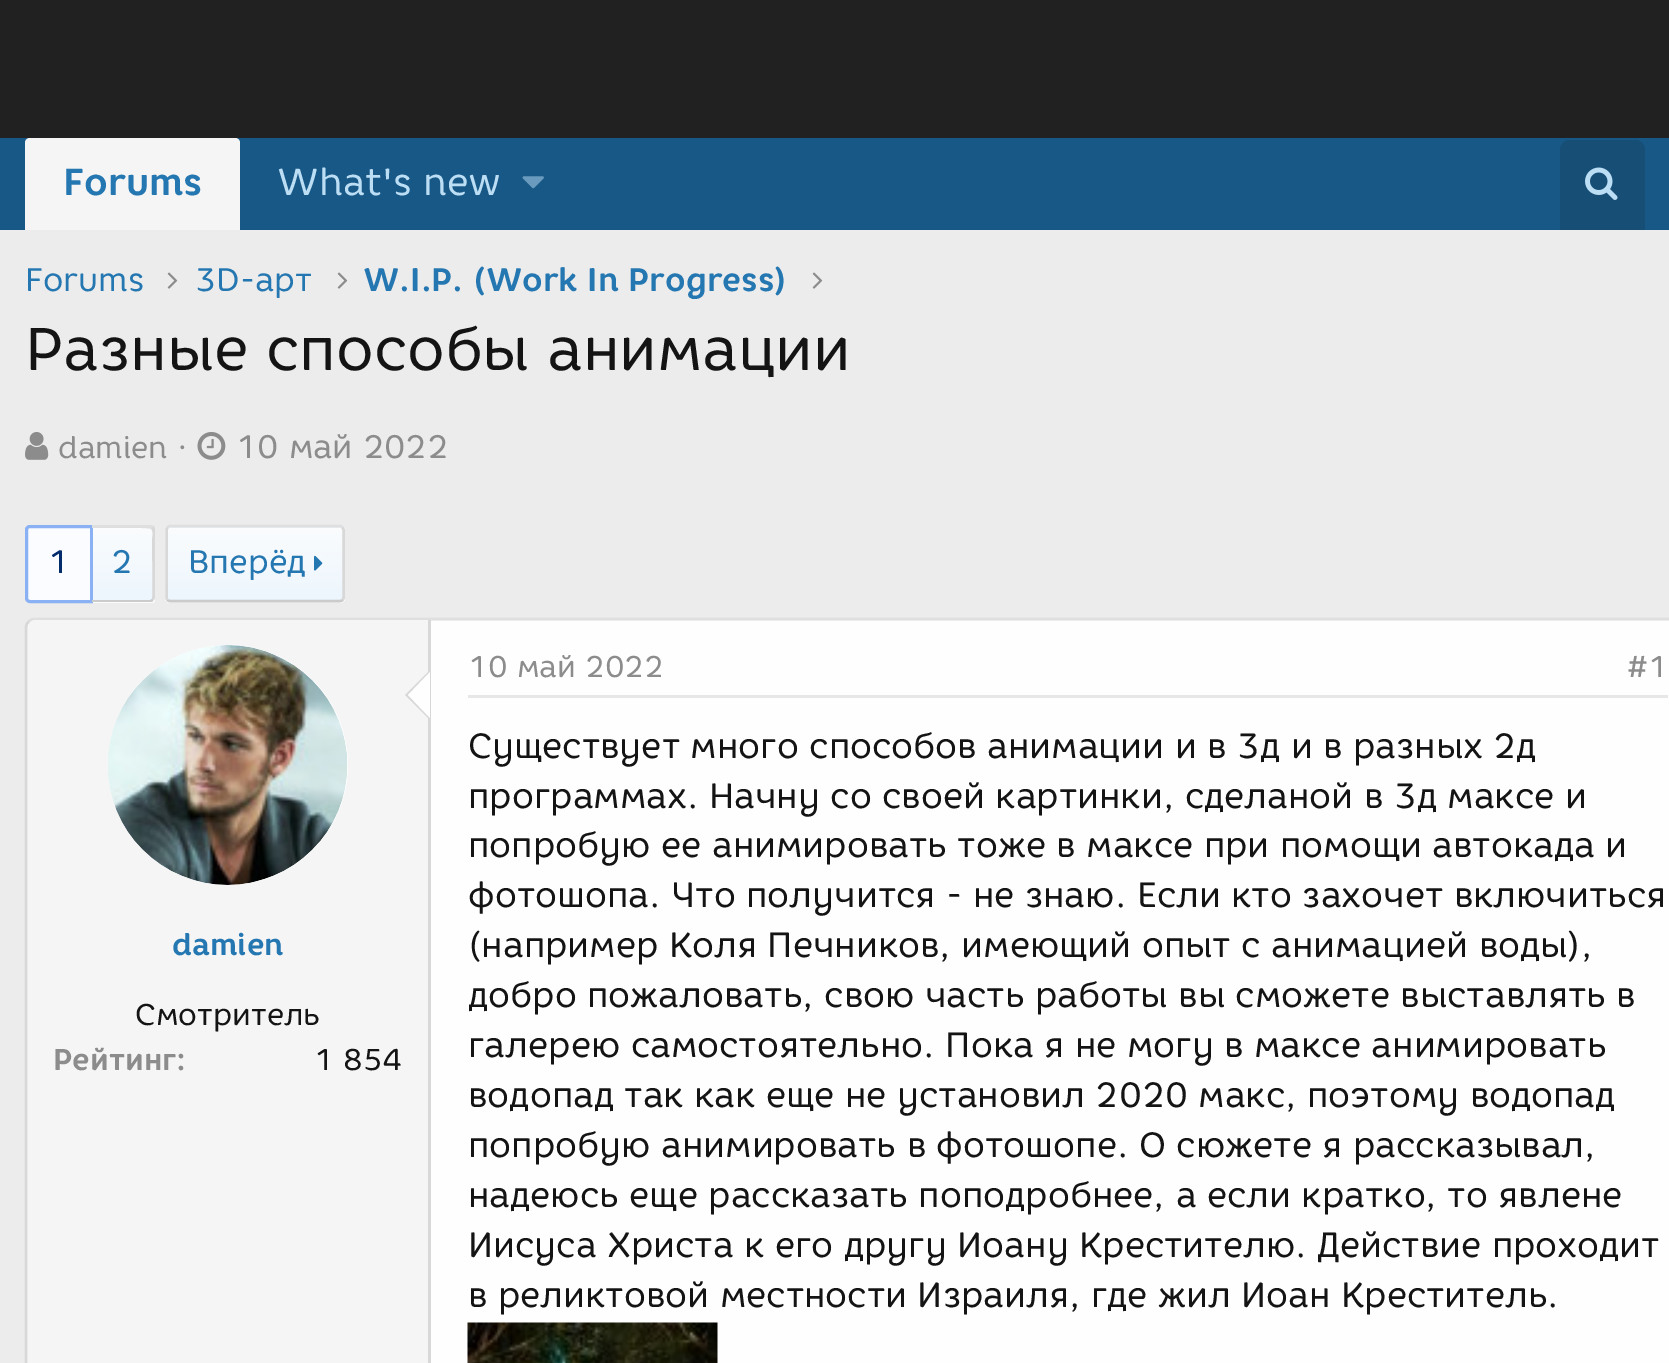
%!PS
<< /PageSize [1669 1363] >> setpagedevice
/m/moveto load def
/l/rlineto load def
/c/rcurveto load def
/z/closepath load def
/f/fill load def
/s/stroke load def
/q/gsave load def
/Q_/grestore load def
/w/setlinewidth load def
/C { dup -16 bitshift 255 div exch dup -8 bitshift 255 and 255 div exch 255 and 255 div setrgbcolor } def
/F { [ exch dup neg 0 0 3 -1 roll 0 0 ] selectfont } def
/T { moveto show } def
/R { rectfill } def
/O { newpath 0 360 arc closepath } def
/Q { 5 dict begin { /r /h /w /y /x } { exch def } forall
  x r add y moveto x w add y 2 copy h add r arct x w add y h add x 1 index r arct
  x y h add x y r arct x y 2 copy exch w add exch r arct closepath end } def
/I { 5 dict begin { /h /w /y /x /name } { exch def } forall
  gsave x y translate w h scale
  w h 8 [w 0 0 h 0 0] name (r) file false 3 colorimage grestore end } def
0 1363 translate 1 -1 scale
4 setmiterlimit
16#ECECEC C
0 0 1669 1363 R
16#212121 C
0 0 1669 138 R
16#185886 C
0 138 1669 92 R
16#F5F5F5 C
30 138 m 205 0 l 3 0 5 2 5 5 c 0 87 l -215 0 l 0 -87 l 0 -3 2 -5 5 -5 c z f
/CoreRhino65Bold-Bold 37.5 F
16#2577B1 C
(Forums) 63 195 T
/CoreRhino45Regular-Regular 37.5 F
16#BCDEF5 C
(What's new) 277 195 T
(1.rgb) 522 176 22 13 I
16#174E75 C
1570 140 m 65 0 l 5.5 0 10 4.5 10 10 c 0 80 l -85 0 l 0 -80 l 0 -5.5 4.5 -10 10 -10 c z f
(2.rgb) 1585 167 33 33 I
/CoreRhino45Regular-Regular 32.5 F
16#2577B1 C
(Forums) 25 291 T
(3.rgb) 167 272 11 17 I
(3D-арт) 195 291 T
(3.rgb) 337 272 11 17 I
/CoreRhino65Bold-Bold 32.5 F
(W.I.P. \(Work In Progress\)) 363 291 T
(3.rgb) 812 272 11 17 I
/CoreRhino45Regular-Regular 60 F
16#141414 C
(Разные способы анимации) 25 370 T
(4.rgb) 25 432 24 28 I
/CoreRhino45Regular-Regular 30 F
16#8C8C8C C
(damien) 58 458 T
/CoreRhino45Regular-Regular 32.5 F
(·) 177 458 T
(5.rgb) 197 432 29 28 I
(10 май 2022) 236 458 T
16#FBFCFF C
30 526.5 m 61.5 0 l 0 75 l -61.5 0 l -2 0 -3.5 -1.5 -3.5 -3.5 c 0 -68 l 0 -2 1.5 -3.5 3.5 -3.5 c z q f Q_
16#89B1F3 C
3 w
s
16#032C6D C
(1) 48 573 T
q 93 528 m 62 0 l 0 72 l -62 0 l z clip newpath
<< /ShadingType 2 /ColorSpace /DeviceRGB /Coords [123 600 123 528] /Extend [true true] /Function << /FunctionType 2 /Domain [0 1] /C0 [.929 .965 .992] /C1 [.98 .988 .996] /N 1 >> >> shfill Q_
q
93 525 m 57 0 l 3 0 5 2 5 5 c 0 68 l 0 3 -2 5 -5 5 c -57 0 l z clip newpath
q 93 600 m 62 0 l 0 3 l -62 0 l z clip newpath
<< /ShadingType 2 /ColorSpace /DeviceRGB /Coords [123 673 123 600] /Extend [true true] /Function << /FunctionType 2 /Domain [0 1] /C0 [.929 .965 .992] /C1 [.98 .988 .996] /N 1 >> >> shfill Q_
Q_
16#DFDFDF C
92 525 m 58 0 l 2 0 3 1 4 1 c -3 3 l -1 -2 -52 -1 -59 -1 c z f
16#D8D8D8 C
152 599 m 1 -2 0 -51 0 -58 c 0 -4 2 -9 -1 -12 c 3 -3 l 1 3 l 0 69 l -2 3 l z f
16#CBCBCB C
92 600 m 58 0 l 2 -1 l 1 2 l 0 1 -2 1 -3 1 c -58 0 l z f
16#2577B1 C
(2) 111 573 T
q
165 525 180 78 5 Q clip newpath
q 165 525 m 180 0 l 0 3 l -180 0 l z clip newpath
<< /ShadingType 2 /ColorSpace /DeviceRGB /Coords [255 528 255 455] /Extend [true true] /Function << /FunctionType 2 /Domain [0 1] /C0 [.929 .965 .992] /C1 [.98 .988 .996] /N 1 >> >> shfill Q_
q 165 528 m 180 0 l 0 72 l -180 0 l z clip newpath
<< /ShadingType 2 /ColorSpace /DeviceRGB /Coords [255 600 255 528] /Extend [true true] /Function << /FunctionType 2 /Domain [0 1] /C0 [.929 .965 .992] /C1 [.98 .988 .996] /N 1 >> >> shfill Q_
q 165 600 m 180 0 l 0 3 l -180 0 l z clip newpath
<< /ShadingType 2 /ColorSpace /DeviceRGB /Coords [255 673 255 600] /Extend [true true] /Function << /FunctionType 2 /Domain [0 1] /C0 [.929 .965 .992] /C1 [.98 .988 .996] /N 1 >> >> shfill Q_
Q_
16#DFDFDF C
2.5 w
167.5 527.5 m .5 -1 1.5 -1.5 2.5 -1.5 c 170 0 l 1 0 2 .5 2.5 1.5 c s
16#D8D8D8 C
342.5 527.5 m 1 2 l 0 68.5 l -1 2 l s
16#CBCBCB C
342.5 600 m -.5 1 -1.5 1 -2.5 1 c -170 0 l -1 0 -2 0 -2.5 -1 c s
16#D8D8D8 C
167.5 600 m -1 -2 l 0 -68.5 l 1 -2 l s
16#2577B1 C
(Вперёд) 188 573 T
(6.rgb) 314 555 9 16 I
16#FEFEFE C
35 618 m 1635 0 l 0 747 l -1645 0 l 0 -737 l 0 -5.5 4.5 -10 10 -10 c z f
16#DFDFDF C
29 621.5 m 1.5 -2 3.5 -2.5 6 -2.5 c 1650 0 l 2.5 0 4.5 .5 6 2.5 c s
16#D8D8D8 C
29 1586 m -2 -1.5 -3 -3.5 -3 -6 c 0 -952.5 l 0 -2.5 1 -4.5 3 -6 c s
16#F5F5F5 C
36 620 m 394 0 l 0 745 l -402 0 l 0 -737 l 0 -4.5 3.5 -8 8 -8 c z f
16#D8D8D8 C
428 620 3 743 R
16#FEFEFE C
228 765 120 O f
(7.rgb) 108 645 240 240 I
16#D8D8D8 C
430 670 m 0 50 l -25 -25 l z f
16#FEFEFE C
430 672 m 0 46 l -22 -23 l z f
/CoreRhino65Bold-Bold 30 F
16#2577B1 C
(damien) 172 955 T
/CoreRhino45Regular-Regular 30 F
16#141414 C
(Смотритель) 135 1025 T
/CoreRhino65Bold-Bold 30 F
16#8C8C8C C
(Рейтинг:) 53 1070 T
/CoreRhino45Regular-Regular 30 F
16#141414 C
(1 854) 314 1070 T
16#E7E7E7 C
468 695 1200 3 R
16#8C8C8C C
(10 май 2022) 468 677 T
(#1) 1627 677 T
/CoreRhino45Regular-Regular 35 F
16#141414 C
(Существует много способов анимации и в 3д и в разных 2д) 468 758 T
(программах. Начну со своей картинки, сделаной в 3д максе и) 468 808 T
(попробую ее анимировать тоже в максе при помощи автокада и) 468 857 T
(фотошопа. Что получится - не знаю. Если кто захочет включиться) 468 907 T
(\(например Коля Печников, имеющий опыт с анимацией воды\),) 468 957 T
(добро пожаловать, свою часть работы вы сможете выставлять в) 468 1007 T
(галерею самостоятельно. Пока я не могу в максе анимировать) 468 1057 T
(водопад так как еще не установил 2020 макс, поэтому водопад) 468 1107 T
(попробую анимировать в фотошопе. О сюжете я рассказывал,) 468 1157 T
(надеюсь еще рассказать поподробнее, а если кратко, то явлене) 468 1207 T
(Иисуса Христа к его другу Иоану Крестителю. Действие проходит) 468 1257 T
(в реликтовой местности Израиля, где жил Иоан Креститель.) 468 1307 T
(8.rgb) 467 1322 251 41 I
showpage
